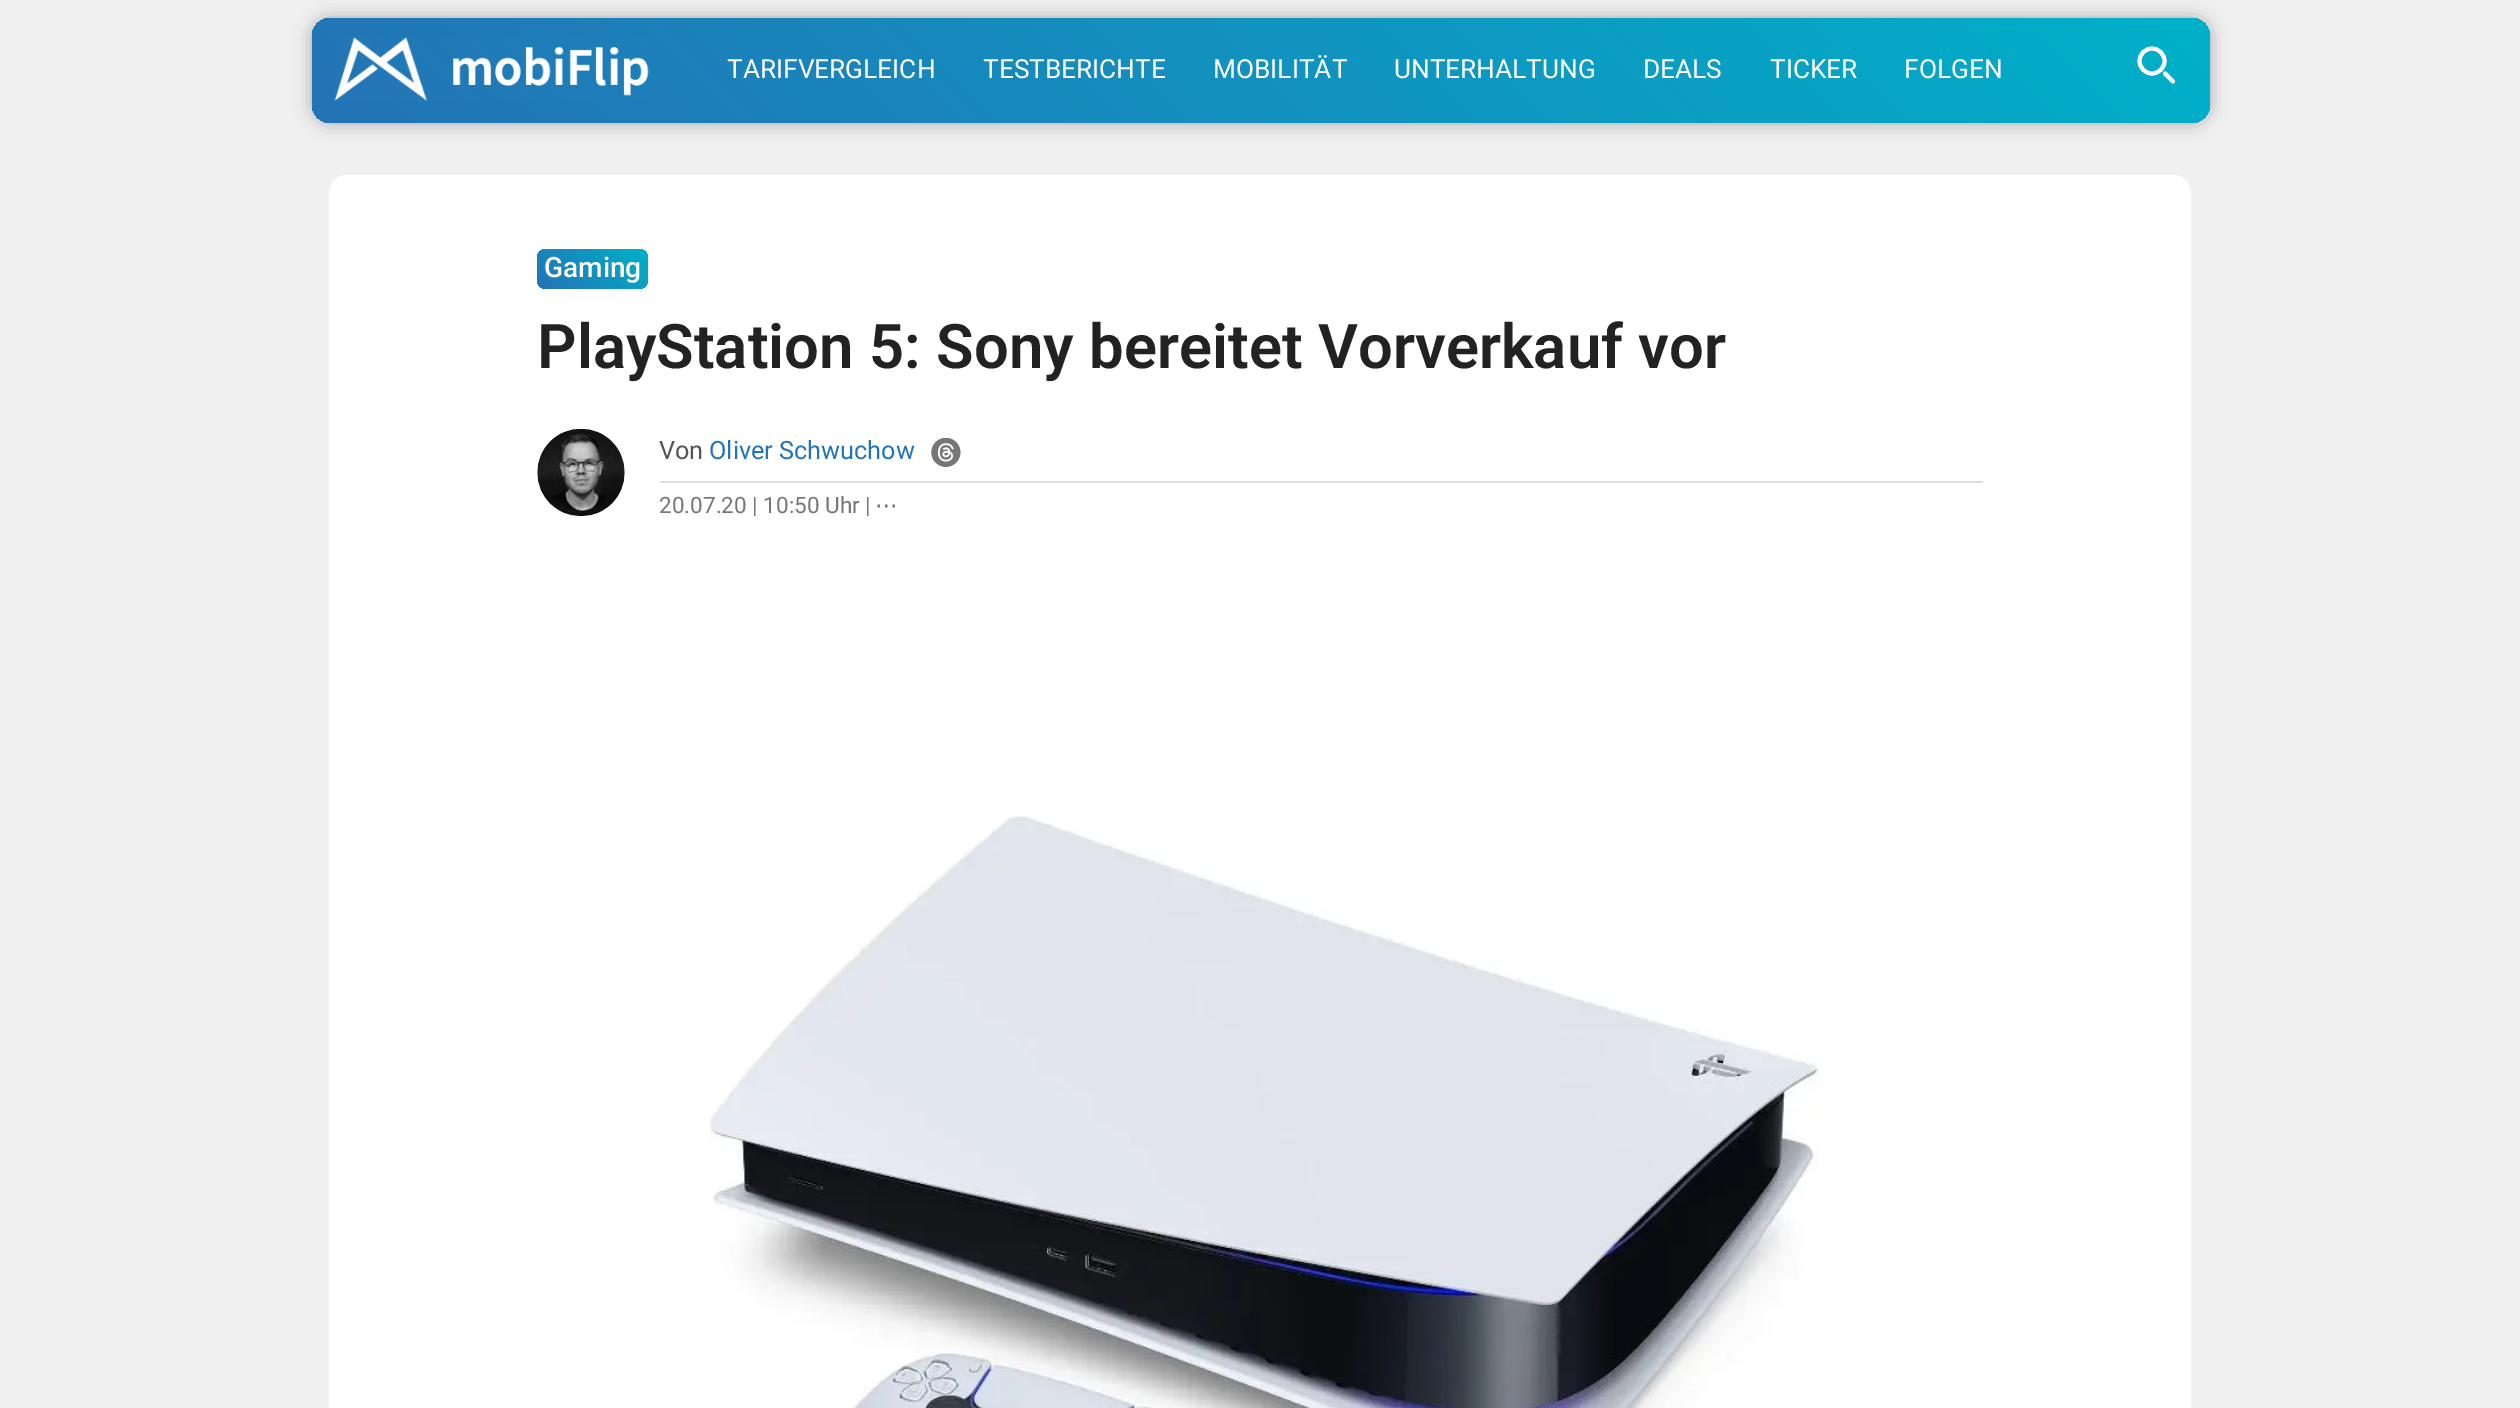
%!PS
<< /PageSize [2520 1408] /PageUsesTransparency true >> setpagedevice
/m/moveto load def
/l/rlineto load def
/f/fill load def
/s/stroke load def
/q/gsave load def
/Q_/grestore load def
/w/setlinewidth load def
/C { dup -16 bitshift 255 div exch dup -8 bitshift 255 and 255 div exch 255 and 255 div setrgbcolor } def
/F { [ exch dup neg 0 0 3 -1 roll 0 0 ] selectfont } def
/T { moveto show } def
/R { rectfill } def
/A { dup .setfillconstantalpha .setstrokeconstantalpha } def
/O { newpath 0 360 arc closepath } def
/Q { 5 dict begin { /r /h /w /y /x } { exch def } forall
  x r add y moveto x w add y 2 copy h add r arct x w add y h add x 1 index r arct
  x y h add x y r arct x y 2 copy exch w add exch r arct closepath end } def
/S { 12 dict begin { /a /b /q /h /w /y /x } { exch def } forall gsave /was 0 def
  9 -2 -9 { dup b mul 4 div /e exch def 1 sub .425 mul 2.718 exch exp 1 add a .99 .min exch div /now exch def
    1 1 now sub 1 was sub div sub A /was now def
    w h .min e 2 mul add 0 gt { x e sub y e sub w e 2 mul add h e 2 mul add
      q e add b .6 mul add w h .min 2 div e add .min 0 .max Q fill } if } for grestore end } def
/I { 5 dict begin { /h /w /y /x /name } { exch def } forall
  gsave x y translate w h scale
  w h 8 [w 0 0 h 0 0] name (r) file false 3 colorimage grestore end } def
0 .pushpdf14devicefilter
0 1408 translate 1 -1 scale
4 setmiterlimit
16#F0F0F0 C
0 0 2520 1408 R
16#000000 C
312 18 1898 105 18 9 .3 S
q 312 18 1898 105 18 Q clip newpath
<< /ShadingType 2 /ColorSpace /DeviceRGB /Coords [760 571 1762 -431] /Extend [true true] /Function << /FunctionType 2 /Domain [0 1] /C0 [.141 .451 .71] /C1 [0 .694 .788] /N 1 >> >> shfill Q_
(1.rgb) 334 37 315 64 I
/Roboto-Regular 26.25 F
16#FFFFFF C
(TARIFVERGLEICH) 727 78 T
(TESTBERICHTE) 983 78 T
(MOBILITÄT) 1213 78 T
(UNTERHALTUNG) 1394 78 T
(DEALS) 1643 78 T
(TICKER) 1770 78 T
(FOLGEN) 1904 78 T
4 w
2152 61 12.5 O s
1 setlinecap
1 setlinejoin
2165 73.5 m 8 8 l s
329 175 1862 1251 18 Q f
q 537 249 111 40 9 Q clip newpath
<< /ShadingType 2 /ColorSpace /DeviceRGB /Coords [555 306 630 231] /Extend [true true] /Function << /FunctionType 2 /Domain [0 1] /C0 [.141 .451 .71] /C1 [0 .694 .788] /N 1 >> >> shfill Q_
/Roboto-Medium 28 F
(Gaming) 544 277 T
/Roboto-SemiBold 61.6 F
16#222222 C
(PlayStation 5: Sony bereitet Vorverkauf vor) 537 368 T
(2.rgb) 537 428 88 89 I
16#DDDDDD C
660 481 1323 2 R
/Roboto-Regular 25.25 F
16#555555 C
(Von) 659 459 T
16#2473B5 C
(Oliver Schwuchow) 709 459 T
(3.rgb) 931 438 30 29 I
/Roboto-Regular 22.5 F
16#777777 C
(20.07.20 | 10:50 Uhr |) 659 513 T
/DejaVuSans-Regular 22.5 F
(⋯) 875 513 T
(4.rgb) 709 816 1110 592 I
.poppdf14devicefilter showpage
